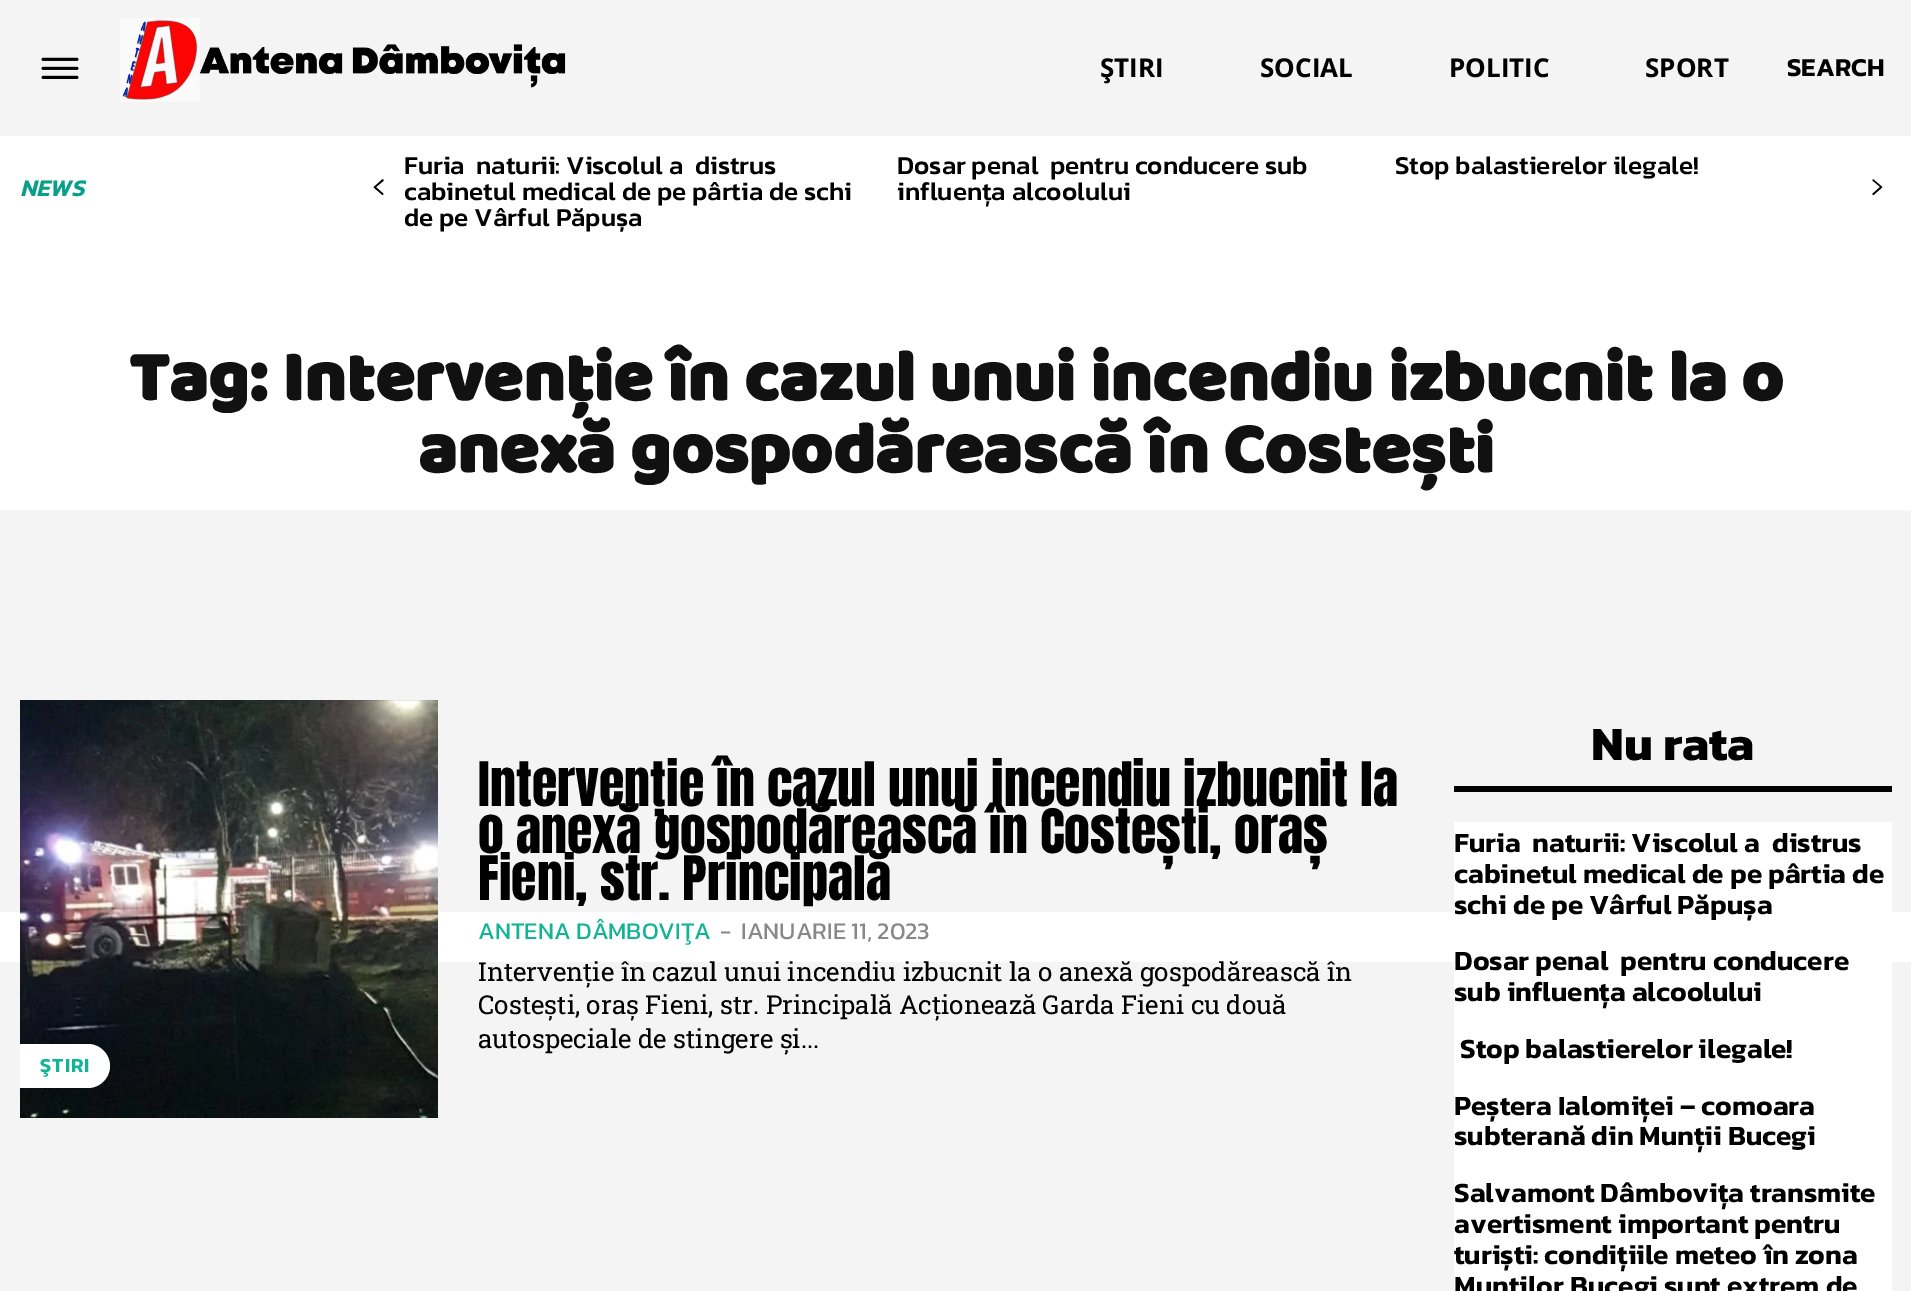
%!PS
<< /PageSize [1911 1291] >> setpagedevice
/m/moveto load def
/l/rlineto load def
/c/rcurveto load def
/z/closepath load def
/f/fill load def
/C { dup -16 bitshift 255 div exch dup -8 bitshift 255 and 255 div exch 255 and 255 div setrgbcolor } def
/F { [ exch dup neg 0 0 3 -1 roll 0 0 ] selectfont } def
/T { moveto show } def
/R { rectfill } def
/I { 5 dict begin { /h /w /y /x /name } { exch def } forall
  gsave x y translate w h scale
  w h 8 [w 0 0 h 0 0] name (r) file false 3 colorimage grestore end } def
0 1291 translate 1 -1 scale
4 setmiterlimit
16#FFFFFF C
0 0 1911 1291 R
16#F4F4F4 C
0 0 1911 136 R
(1.rgb) 41 57 38 22 I
(2.rgb) 120 18 446 84 I
/OpenSans-Bold 26 F
16#000000 C
(ŞTIRI) 1100 77 T
(SOCIAL) 1260 77 T
(POLITIC) 1449 77 T
(SPORT) 1645 77 T
/Kanit-SemiBold 26 F
(SEARCH) 1787 76 T
/Kanit-SemiBoldItalic 24 F
16#099F8A C
(NEWS) 20 196 T
/Kanit-Medium 26 F
16#000000 C
(Furia  naturii: Viscolul a  distrus) 404 174 T
(cabinetul medical de pe pârtia de schi) 404 200 T
(de pe Vârful Păpușa) 404 226 T
(Dosar penal  pentru conducere sub) 897 174 T
(influența alcoolului) 897 200 T
(Stop balastierelor ilegale!) 1395 174 T
(3.rgb) 373 179 11 17 I
(4.rgb) 1872 179 11 17 I
/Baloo-Bold 72 F
16#111111 C
(Tag: Intervenție în cazul unui incendiu izbucnit la o) 129 400 T
(anexă gospodărească în Costești) 418 472 T
16#F4F4F4 C
0 510 1911 402 R
/Anton-Regular 52 F
16#000000 C
(Intervenție în cazul unui incendiu izbucnit la) 478 806 T
(o anexă gospodărească în Costești, oraș) 478 853 T
(Fieni, str. Principală) 478 900 T
/Kanit-Regular 24 F
16#11B494 C
(ANTENA DÂMBOVIŢA) 478 939 T
16#888888 C
(-) 720 939 T
(IANUARIE 11, 2023) 741 939 T
16#F4F4F4 C
0 962 1911 329 R
/RobotoSlab-Regular 26 F
16#000000 C
(Intervenție în cazul unui incendiu izbucnit la o anexă gospodărească în) 478 981 T
(Costești, oraș Fieni, str. Principală Acționează Garda Fieni cu două) 478 1014 T
(autospeciale de stingere și...) 478 1048 T
(5.rgb) 20 700 418 418 I
16#FFFFFF C
20 1044 m 68 0 l 12 0 22 10 22 22 c 0 12 -10 22 -22 22 c -68 0 l z f
/Kanit-SemiBold 20 F
16#11B494 C
40 1072 m 1 0 (ŞTIRI) ashow
16#000000 C
1454 786 438 6 R
/Kanit-Bold 48 F
(Nu rata) 1591 760 T
16#FFFFFF C
1454 822 438 469 R
/Kanit-SemiBold 28 F
16#000000 C
(Furia  naturii: Viscolul a  distrus) 1454 852 T
(cabinetul medical de pe pârtia de) 1454 883 T
(schi de pe Vârful Păpușa) 1454 914 T
(Dosar penal  pentru conducere) 1454 970 T
(sub influența alcoolului) 1454 1001 T
(Stop balastierelor ilegale!) 1460 1058 T
(Peștera Ialomiței – comoara) 1454 1115 T
(subterană din Munții Bucegi) 1454 1145 T
(Salvamont Dâmbovița transmite) 1454 1202 T
(avertisment important pentru) 1454 1233 T
(turiști: condițiile meteo în zona) 1454 1264 T
(Munților Bucegi sunt extrem de) 1454 1295 T
showpage
